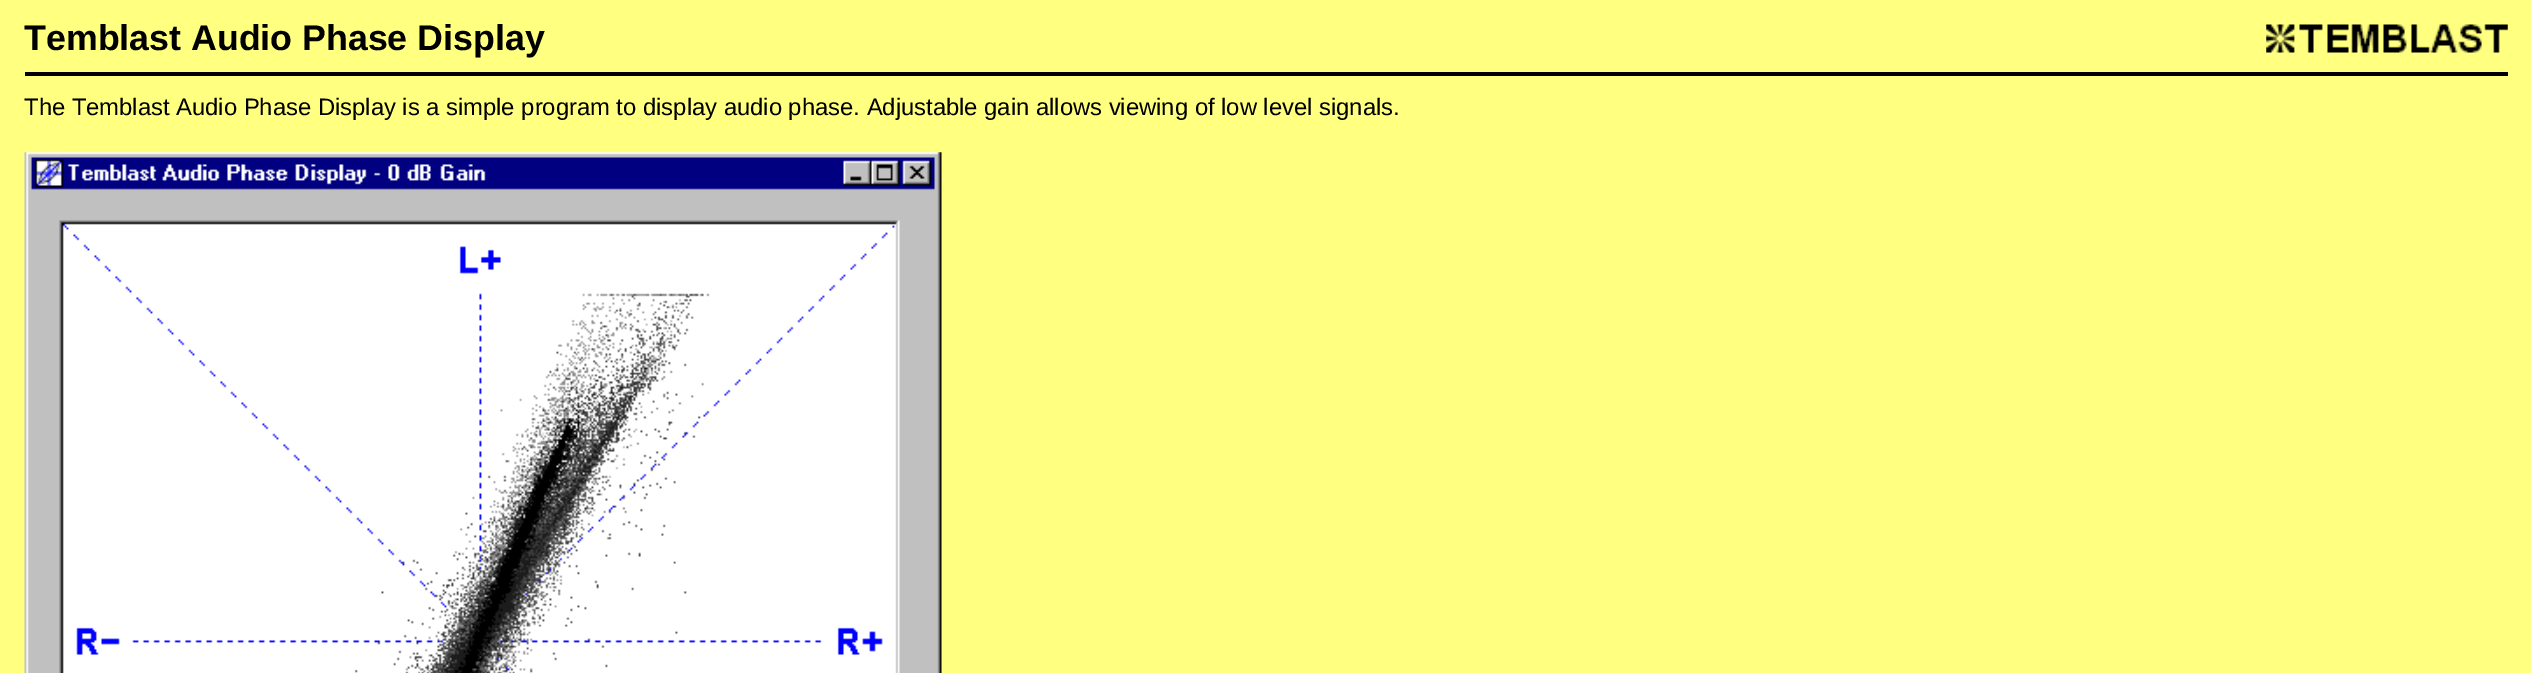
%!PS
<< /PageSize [2531 673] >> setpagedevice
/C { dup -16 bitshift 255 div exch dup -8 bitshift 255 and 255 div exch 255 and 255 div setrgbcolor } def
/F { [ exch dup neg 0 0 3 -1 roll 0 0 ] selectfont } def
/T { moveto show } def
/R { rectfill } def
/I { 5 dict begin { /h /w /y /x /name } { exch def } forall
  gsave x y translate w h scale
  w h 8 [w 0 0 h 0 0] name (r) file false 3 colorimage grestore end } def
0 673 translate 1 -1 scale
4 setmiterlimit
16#FFFF80 C
0 0 2531 673 R
/LiberationSans-Bold 35.75 F
16#000000 C
(Temblast Audio Phase Display) 24 50 T
(1.rgb) 2266 24 242 29 I
25 72 2483 4 R
/LiberationSans-Regular 23.8 F
(The Temblast Audio Phase Display is a simple program to display audio phase. Adjustable gain allows viewing of low level signals.) 24 115 T
(2.rgb) 24 152 918 521 I
showpage
